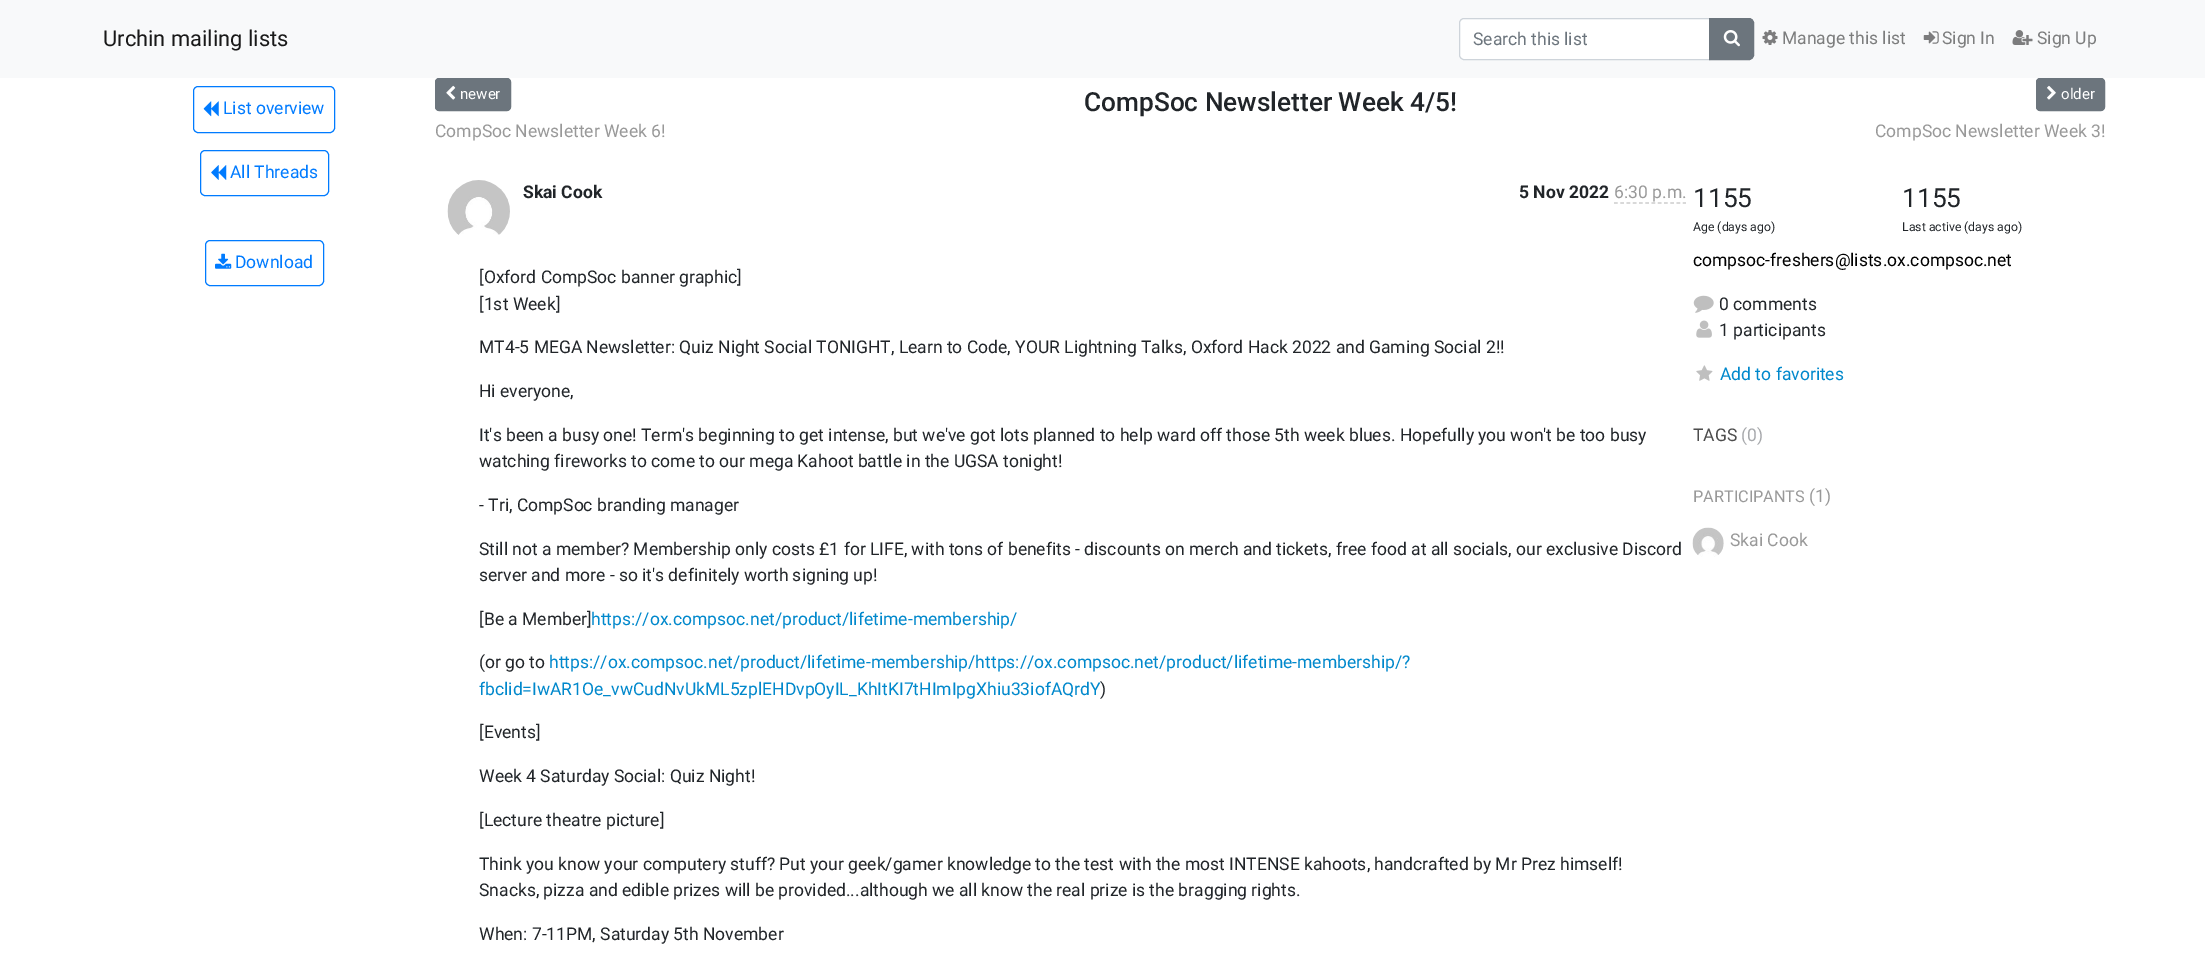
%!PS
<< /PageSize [2205 976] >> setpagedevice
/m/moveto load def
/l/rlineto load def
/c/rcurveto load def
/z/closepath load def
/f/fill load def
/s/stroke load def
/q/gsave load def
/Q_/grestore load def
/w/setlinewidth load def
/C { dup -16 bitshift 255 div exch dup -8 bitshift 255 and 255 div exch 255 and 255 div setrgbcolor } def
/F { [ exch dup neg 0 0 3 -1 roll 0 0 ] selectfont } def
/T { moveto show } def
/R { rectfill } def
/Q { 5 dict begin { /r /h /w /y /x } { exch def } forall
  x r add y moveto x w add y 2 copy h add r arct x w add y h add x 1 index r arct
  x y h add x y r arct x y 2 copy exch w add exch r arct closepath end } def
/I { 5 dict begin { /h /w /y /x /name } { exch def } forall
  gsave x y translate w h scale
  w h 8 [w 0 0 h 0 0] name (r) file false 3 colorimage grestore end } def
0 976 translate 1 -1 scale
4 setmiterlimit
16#FFFFFF C
0 0 2205 976 R
16#F8F9FA C
0 0 2205 78 R
/Roboto-Regular 21.9 F
16#191919 C
(Urchin mailing lists) 103 46 T
16#FFFFFF C
1463 19 m 246 0 l 0 40 l -246 0 l -1.5 0 -3 -1.5 -3 -3 c 0 -34 l 0 -1.5 1.5 -3 3 -3 c z f
16#CED4DA C
1464 18.5 m 245.5 0 l 0 41 l -245.5 0 l -2.5 0 -4.5 -2 -4.5 -4.5 c 0 -32 l 0 -2.5 2 -4.5 4.5 -4.5 c z s
/Roboto-Regular 17.5 F
16#6C757D C
(Search this list) 1473 45 T
1709.5 18.5 m 39.5 0 l 2.5 0 4.5 2 4.5 4.5 c 0 32 l 0 2.5 -2 4.5 -4.5 4.5 c -39.5 0 l z q f Q_
s
(1.rgb) 1723 30 17 17 I
(2.rgb) 1762 30 16 15 I
16#7C7D7D C
(Manage this list) 1782 44 T
(3.rgb) 1923 31 16 13 I
(Sign In) 1942 44 T
(4.rgb) 2012 30 21 15 I
(Sign Up) 2037 44 T
16#007BFF C
193.5 86.5 141 46 4.5 Q s
(5.rgb) 203 101 16 16 I
(List overview) 223 114 T
200.5 150.5 128 45 4.5 Q s
(6.rgb) 211 165 16 15 I
(All Threads) 230 178 T
205.5 240.5 118 45 4.5 Q s
(7.rgb) 215 253 17 16 I
(Download) 235 268 T
16#6C757D C
435.5 78.5 75 32 3.5 Q q f Q_
s
(8.rgb) 446 85 10 15 I
/Roboto-Regular 15 F
16#FFFFFF C
(newer) 460 99 T
/Roboto-Medium 26.25 F
16#212529 C
(CompSoc Newsletter Week 4/5!) 1084 111 T
16#6C757D C
2036.5 78.5 68 32 3.5 Q q f Q_
s
(9.rgb) 2047 85 9 15 I
/Roboto-Regular 15 F
16#FFFFFF C
(older) 2061 99 T
/Roboto-Regular 17.5 F
16#999999 C
(CompSoc Newsletter Week 6!) 435 137 T
(CompSoc Newsletter Week 3!) 1875 137 T
(10.rgb) 447 180 63 55 I
/Roboto-Bold 17.5 F
16#212529 C
(Skai Cook) 523 198 T
(5 Nov 2022) 1519 198 T
/Roboto-Regular 17.5 F
16#999999 C
(6:30 p.m.) 1614 198 T
16#CCCCCC C
1.2 w
[3.75 2.5] 0 setdash
1614 203 m 72 0 l s
16#212529 C
([Oxford CompSoc banner graphic]) 479 283 T
([1st Week]) 479 310 T
(MT4-5 MEGA Newsletter: Quiz Night Social TONIGHT, Learn to Code, YOUR Lightning Talks, Oxford Hack 2022 and Gaming Social 2!!) 479 353 T
(Hi everyone,) 479 397 T
(It's been a busy one! Term's beginning to get intense, but we've got lots planned to help ward off those 5th week blues. Hopefully you won't be too busy) 479 441 T
(watching fireworks to come to our mega Kahoot battle in the UGSA tonight!) 479 467 T
(- Tri, CompSoc branding manager) 479 511 T
(Still not a member? Membership only costs £1 for LIFE, with tons of benefits - discounts on merch and tickets, free food at all socials, our exclusive Discord) 479 555 T
(server and more - so it's definitely worth signing up!) 479 581 T
([Be a Member]) 479 625 T
16#0088CC C
(https://ox.compsoc.net/product/lifetime-membership/) 591 625 T
16#212529 C
(\(or go to) 479 668 T
16#0088CC C
(https://ox.compsoc.net/product/lifetime-membership/https://ox.compsoc.net/product/lifetime-membership/?) 549 668 T
(fbclid=IwAR1Oe_vwCudNvUkML5zplEHDvpOyIL_KhItKI7tHImIpgXhiu33iofAQrdY) 479 695 T
16#212529 C
(\)) 1100 695 T
([Events]) 479 738 T
(Week 4 Saturday Social: Quiz Night!) 479 782 T
([Lecture theatre picture]) 479 826 T
(Think you know your computery stuff? Put your geek/gamer knowledge to the test with the most INTENSE kahoots, handcrafted by Mr Prez himself!) 479 870 T
(Snacks, pizza and edible prizes will be provided...although we all know the real prize is the bragging rights.) 479 896 T
(When: 7-11PM, Saturday 5th November) 479 940 T
/Roboto-Regular 26.25 F
(1155) 1693 207 T
/Roboto-Regular 12.25 F
(Age \(days ago\)) 1693 231 T
/Roboto-Regular 26.25 F
(1155) 1902 207 T
/Roboto-Regular 12.25 F
(Last active \(days ago\)) 1902 231 T
/Roboto-Regular 17.5 F
16#000000 C
(compsoc-freshers@lists.ox.compsoc.net) 1693 266 T
(11.rgb) 1693 295 21 18 I
16#212529 C
(0 comments) 1719 310 T
(12.rgb) 1696 320 16 18 I
(1 participants) 1719 336 T
(13.rgb) 1696 365 17 16 I
16#0088CC C
(Add to favorites) 1720 380 T
16#4D4D4D C
(TAGS) 1693 441 T
16#A7A9AC C
(\(0\)) 1741 441 T
/Roboto-Regular 16.25 F
16#999999 C
(PARTICIPANTS) 1693 502 T
/Roboto-Regular 17.5 F
(\(1\)) 1809 502 T
(14.rgb) 1692 527 32 30 I
(Skai Cook) 1730 546 T
showpage
